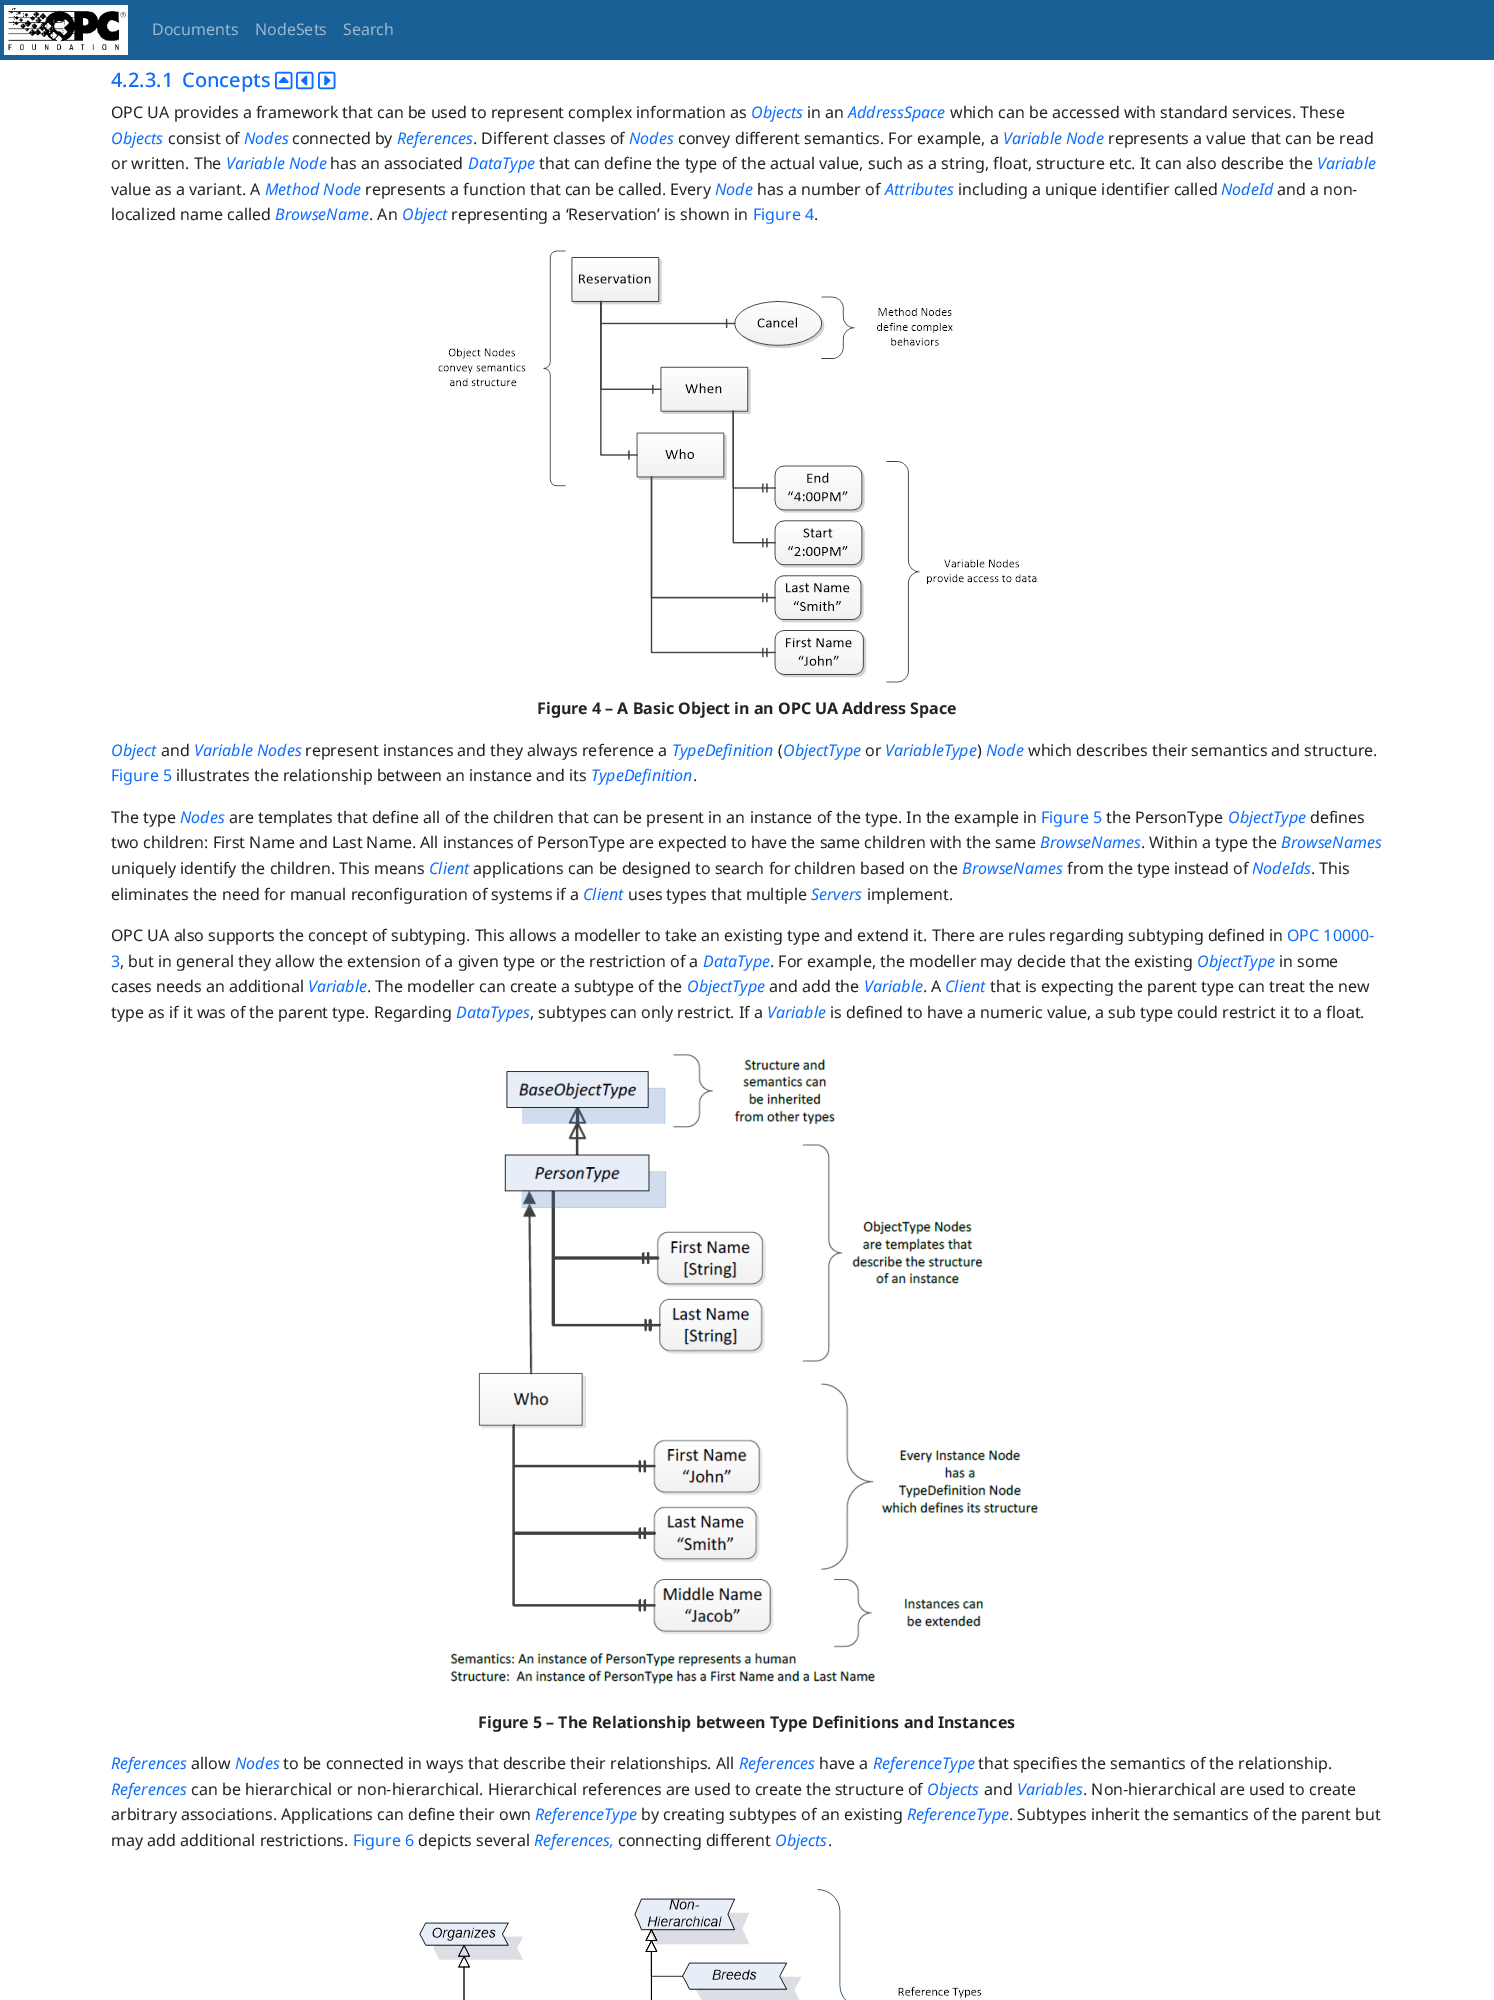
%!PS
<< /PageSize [1494 2000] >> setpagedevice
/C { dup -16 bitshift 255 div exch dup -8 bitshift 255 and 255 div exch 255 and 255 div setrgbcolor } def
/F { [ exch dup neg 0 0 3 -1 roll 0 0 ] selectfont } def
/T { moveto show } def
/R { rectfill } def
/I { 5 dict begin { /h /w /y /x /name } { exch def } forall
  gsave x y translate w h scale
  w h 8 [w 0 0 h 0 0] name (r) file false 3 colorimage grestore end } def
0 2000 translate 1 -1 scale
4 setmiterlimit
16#FFFFFF C
0 0 1494 2000 R
16#196096 C
0 0 1494 60 R
(1.rgb) 4 5 124 50 I
/NotoSans-Regular 16 F
16#98B7D0 C
(Documents) 152 35 T
(NodeSets) 255 35 T
(Search) 343 35 T
/NotoSans-Medium 20 F
16#0D6EFD C
(4.2.3.1) 111 87 T
(Concepts) 182 87 T
(2.rgb) 275 71 18 19 I
(3.rgb) 296 71 18 19 I
(4.rgb) 318 71 18 19 I
/NotoSans-Regular 16 F
16#212529 C
(OPC UA provides a framework that can be used to represent complex information as) 111 118 T
/NotoSans-Italic 16 F
16#0D6EFD C
(Objects) 751 118 T
/NotoSans-Regular 16 F
16#212529 C
(in an) 807 118 T
/NotoSans-Italic 16 F
16#0D6EFD C
(AddressSpace) 848 118 T
/NotoSans-Regular 16 F
16#212529 C
(which can be accessed with standard services. These) 950 118 T
/NotoSans-Italic 16 F
16#0D6EFD C
(Objects) 111 144 T
/NotoSans-Regular 16 F
16#212529 C
(consist of) 168 144 T
/NotoSans-Italic 16 F
16#0D6EFD C
(Nodes) 244 144 T
/NotoSans-Regular 16 F
16#212529 C
(connected by) 292 144 T
/NotoSans-Italic 16 F
16#0D6EFD C
(References) 397 144 T
/NotoSans-Regular 16 F
16#212529 C
(. Different classes of) 473 144 T
/NotoSans-Italic 16 F
16#0D6EFD C
(Nodes) 629 144 T
/NotoSans-Regular 16 F
16#212529 C
(convey different semantics. For example, a) 678 144 T
/NotoSans-Italic 16 F
16#0D6EFD C
(Variable Node) 1003 144 T
/NotoSans-Regular 16 F
16#212529 C
(represents a value that can be read) 1108 144 T
(or written. The) 111 169 T
/NotoSans-Italic 16 F
16#0D6EFD C
(Variable Node) 226 169 T
/NotoSans-Regular 16 F
16#212529 C
(has an associated) 330 169 T
/NotoSans-Italic 16 F
16#0D6EFD C
(DataType) 468 169 T
/NotoSans-Regular 16 F
16#212529 C
(that can define the type of the actual value, such as a string, float, structure etc. It can also describe the) 539 169 T
/NotoSans-Italic 16 F
16#0D6EFD C
(Variable) 1317 169 T
/NotoSans-Regular 16 F
16#212529 C
(value as a variant. A) 111 195 T
/NotoSans-Italic 16 F
16#0D6EFD C
(Method Node) 265 195 T
/NotoSans-Regular 16 F
16#212529 C
(represents a function that can be called. Every) 365 195 T
/NotoSans-Italic 16 F
16#0D6EFD C
(Node) 715 195 T
/NotoSans-Regular 16 F
16#212529 C
(has a number of) 757 195 T
/NotoSans-Italic 16 F
16#0D6EFD C
(Attributes) 885 195 T
/NotoSans-Regular 16 F
16#212529 C
(including a unique identifier called) 958 195 T
/NotoSans-Italic 16 F
16#0D6EFD C
(NodeId) 1221 195 T
/NotoSans-Regular 16 F
16#212529 C
(and a non-) 1277 195 T
(localized name called) 111 220 T
/NotoSans-Italic 16 F
16#0D6EFD C
(BrowseName) 275 220 T
/NotoSans-Regular 16 F
16#212529 C
(. An) 369 220 T
/NotoSans-Italic 16 F
16#0D6EFD C
(Object) 402 220 T
/NotoSans-Regular 16 F
16#212529 C
(representing a ‘Reservation’ is shown in) 451 220 T
16#0D6EFD C
(Figure 4) 753 220 T
16#212529 C
(.) 814 220 T
(5.rgb) 438 250 599 433 I
/NotoSans-Bold 16 F
(Figure 4 – A Basic Object in an OPC UA Address Space) 537 714 T
/NotoSans-Italic 16 F
16#0D6EFD C
(Object) 111 756 T
/NotoSans-Regular 16 F
16#212529 C
(and) 161 756 T
/NotoSans-Italic 16 F
16#0D6EFD C
(Variable Nodes) 194 756 T
/NotoSans-Regular 16 F
16#212529 C
(represent instances and they always reference a) 305 756 T
/NotoSans-Italic 16 F
16#0D6EFD C
(TypeDefinition) 672 756 T
/NotoSans-Regular 16 F
16#212529 C
(\() 778 756 T
/NotoSans-Italic 16 F
16#0D6EFD C
(ObjectType) 783 756 T
/NotoSans-Regular 16 F
16#212529 C
(or) 865 756 T
/NotoSans-Italic 16 F
16#0D6EFD C
(VariableType) 885 756 T
/NotoSans-Regular 16 F
16#212529 C
(\)) 977 756 T
/NotoSans-Italic 16 F
16#0D6EFD C
(Node) 986 756 T
/NotoSans-Regular 16 F
16#212529 C
(which describes their semantics and structure.) 1028 756 T
16#0D6EFD C
(Figure 5) 111 781 T
16#212529 C
(illustrates the relationship between an instance and its) 176 781 T
/NotoSans-Italic 16 F
16#0D6EFD C
(TypeDefinition) 591 781 T
/NotoSans-Regular 16 F
16#212529 C
(.) 693 781 T
(The type) 111 823 T
/NotoSans-Italic 16 F
16#0D6EFD C
(Nodes) 180 823 T
/NotoSans-Regular 16 F
16#212529 C
(are templates that define all of the children that can be present in an instance of the type. In the example in) 229 823 T
16#0D6EFD C
(Figure 5) 1041 823 T
16#212529 C
(the PersonType) 1106 823 T
/NotoSans-Italic 16 F
16#0D6EFD C
(ObjectType) 1228 823 T
/NotoSans-Regular 16 F
16#212529 C
(defines) 1310 823 T
(two children: First Name and Last Name. All instances of PersonType are expected to have the same children with the same) 111 848 T
/NotoSans-Italic 16 F
16#0D6EFD C
(BrowseNames) 1040 848 T
/NotoSans-Regular 16 F
16#212529 C
(. Within a type the) 1141 848 T
/NotoSans-Italic 16 F
16#0D6EFD C
(BrowseNames) 1281 848 T
/NotoSans-Regular 16 F
16#212529 C
(uniquely identify the children. This means) 111 874 T
/NotoSans-Italic 16 F
16#0D6EFD C
(Client) 429 874 T
/NotoSans-Regular 16 F
16#212529 C
(applications can be designed to search for children based on the) 473 874 T
/NotoSans-Italic 16 F
16#0D6EFD C
(BrowseNames) 962 874 T
/NotoSans-Regular 16 F
16#212529 C
(from the type instead of) 1067 874 T
/NotoSans-Italic 16 F
16#0D6EFD C
(NodeIds) 1252 874 T
/NotoSans-Regular 16 F
16#212529 C
(. This) 1311 874 T
(eliminates the need for manual reconfiguration of systems if a) 111 900 T
/NotoSans-Italic 16 F
16#0D6EFD C
(Client) 583 900 T
/NotoSans-Regular 16 F
16#212529 C
(uses types that multiple) 628 900 T
/NotoSans-Italic 16 F
16#0D6EFD C
(Servers) 811 900 T
/NotoSans-Regular 16 F
16#212529 C
(implement.) 867 900 T
(OPC UA also supports the concept of subtyping. This allows a modeller to take an existing type and extend it. There are rules regarding subtyping defined in) 111 941 T
16#0D6EFD C
(OPC 10000-) 1287 941 T
(3) 111 967 T
16#212529 C
(, but in general they allow the extension of a given type or the restriction of a) 120 967 T
/NotoSans-Italic 16 F
16#0D6EFD C
(DataType) 703 967 T
/NotoSans-Regular 16 F
16#212529 C
(. For example, the modeller may decide that the existing) 770 967 T
/NotoSans-Italic 16 F
16#0D6EFD C
(ObjectType) 1197 967 T
/NotoSans-Regular 16 F
16#212529 C
(in some) 1279 967 T
(cases needs an additional) 111 992 T
/NotoSans-Italic 16 F
16#0D6EFD C
(Variable) 308 992 T
/NotoSans-Regular 16 F
16#212529 C
(. The modeller can create a subtype of the) 367 992 T
/NotoSans-Italic 16 F
16#0D6EFD C
(ObjectType) 687 992 T
/NotoSans-Regular 16 F
16#212529 C
(and add the) 769 992 T
/NotoSans-Italic 16 F
16#0D6EFD C
(Variable) 864 992 T
/NotoSans-Regular 16 F
16#212529 C
(. A) 923 992 T
/NotoSans-Italic 16 F
16#0D6EFD C
(Client) 945 992 T
/NotoSans-Regular 16 F
16#212529 C
(that is expecting the parent type can treat the new) 990 992 T
(type as if it was of the parent type. Regarding) 111 1018 T
/NotoSans-Italic 16 F
16#0D6EFD C
(DataTypes) 456 1018 T
/NotoSans-Regular 16 F
16#212529 C
(, subtypes can only restrict. If a) 530 1018 T
/NotoSans-Italic 16 F
16#0D6EFD C
(Variable) 767 1018 T
/NotoSans-Regular 16 F
16#212529 C
(is defined to have a numeric value, a sub type could restrict it to a float.) 830 1018 T
(6.rgb) 450 1054 589 630 I
/NotoSans-Bold 16 F
(Figure 5 – The Relationship between Type Definitions and Instances) 478 1728 T
/NotoSans-Italic 16 F
16#0D6EFD C
(References) 111 1769 T
/NotoSans-Regular 16 F
16#212529 C
(allow) 191 1769 T
/NotoSans-Italic 16 F
16#0D6EFD C
(Nodes) 235 1769 T
/NotoSans-Regular 16 F
16#212529 C
(to be connected in ways that describe their relationships. All) 283 1769 T
/NotoSans-Italic 16 F
16#0D6EFD C
(References) 739 1769 T
/NotoSans-Regular 16 F
16#212529 C
(have a) 819 1769 T
/NotoSans-Italic 16 F
16#0D6EFD C
(ReferenceType) 873 1769 T
/NotoSans-Regular 16 F
16#212529 C
(that specifies the semantics of the relationship.) 978 1769 T
/NotoSans-Italic 16 F
16#0D6EFD C
(References) 111 1795 T
/NotoSans-Regular 16 F
16#212529 C
(can be hierarchical or non-hierarchical. Hierarchical references are used to create the structure of) 191 1795 T
/NotoSans-Italic 16 F
16#0D6EFD C
(Objects) 927 1795 T
/NotoSans-Regular 16 F
16#212529 C
(and) 984 1795 T
/NotoSans-Italic 16 F
16#0D6EFD C
(Variables) 1017 1795 T
/NotoSans-Regular 16 F
16#212529 C
(. Non-hierarchical are used to create) 1083 1795 T
(arbitrary associations. Applications can define their own) 111 1820 T
/NotoSans-Italic 16 F
16#0D6EFD C
(ReferenceType) 535 1820 T
/NotoSans-Regular 16 F
16#212529 C
(by creating subtypes of an existing) 641 1820 T
/NotoSans-Italic 16 F
16#0D6EFD C
(ReferenceType) 907 1820 T
/NotoSans-Regular 16 F
16#212529 C
(. Subtypes inherit the semantics of the parent but) 1009 1820 T
(may add additional restrictions.) 111 1846 T
16#0D6EFD C
(Figure 6) 353 1846 T
16#212529 C
(depicts several) 418 1846 T
/NotoSans-Italic 16 F
16#0D6EFD C
(References,) 534 1846 T
/NotoSans-Regular 16 F
16#212529 C
(connecting different) 618 1846 T
/NotoSans-Italic 16 F
16#0D6EFD C
(Objects) 775 1846 T
/NotoSans-Regular 16 F
16#212529 C
(.) 828 1846 T
(7.rgb) 419 1889 563 111 I
showpage
